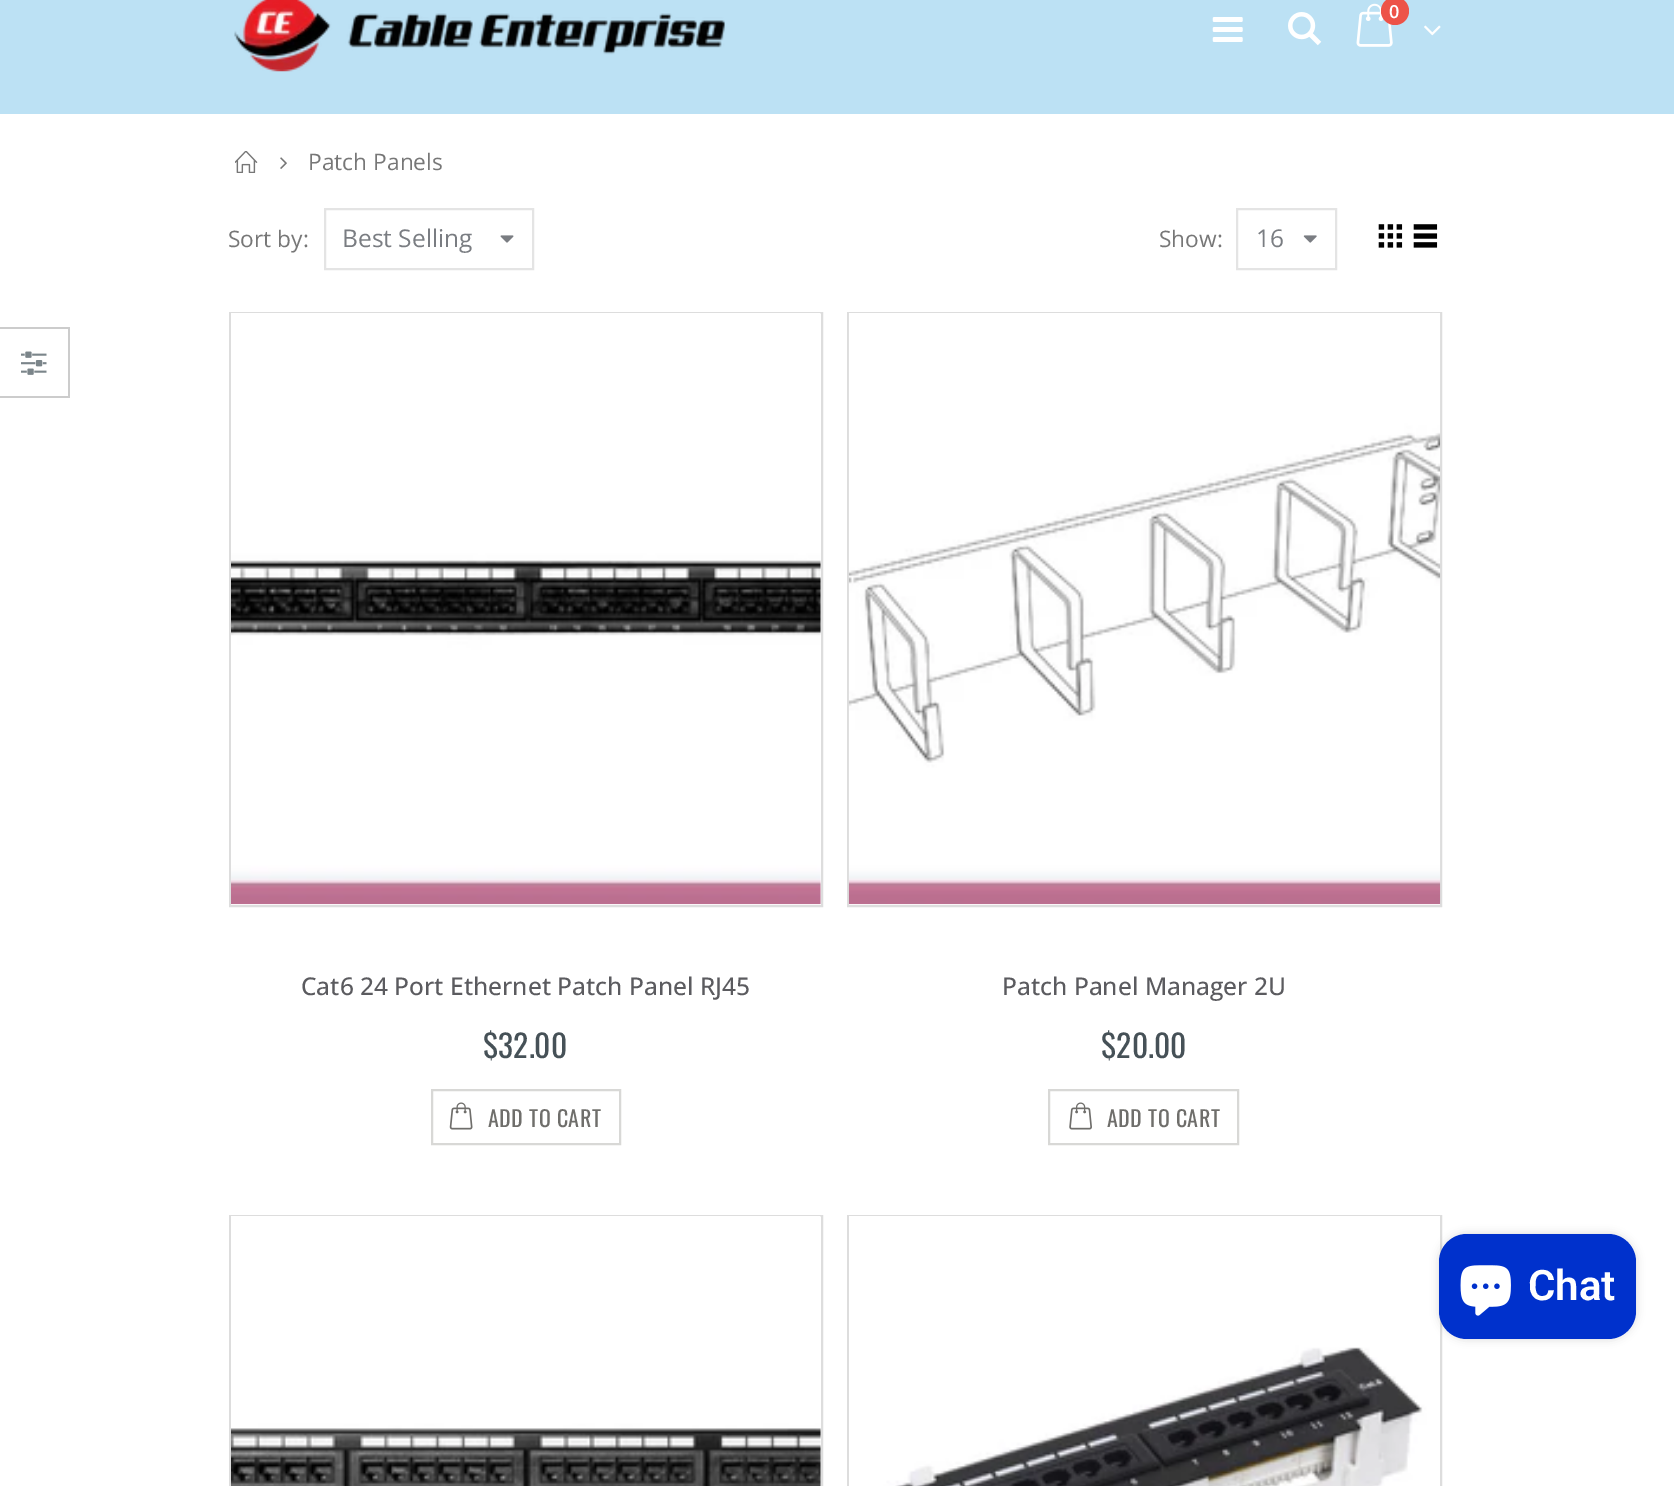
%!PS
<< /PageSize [1674 1486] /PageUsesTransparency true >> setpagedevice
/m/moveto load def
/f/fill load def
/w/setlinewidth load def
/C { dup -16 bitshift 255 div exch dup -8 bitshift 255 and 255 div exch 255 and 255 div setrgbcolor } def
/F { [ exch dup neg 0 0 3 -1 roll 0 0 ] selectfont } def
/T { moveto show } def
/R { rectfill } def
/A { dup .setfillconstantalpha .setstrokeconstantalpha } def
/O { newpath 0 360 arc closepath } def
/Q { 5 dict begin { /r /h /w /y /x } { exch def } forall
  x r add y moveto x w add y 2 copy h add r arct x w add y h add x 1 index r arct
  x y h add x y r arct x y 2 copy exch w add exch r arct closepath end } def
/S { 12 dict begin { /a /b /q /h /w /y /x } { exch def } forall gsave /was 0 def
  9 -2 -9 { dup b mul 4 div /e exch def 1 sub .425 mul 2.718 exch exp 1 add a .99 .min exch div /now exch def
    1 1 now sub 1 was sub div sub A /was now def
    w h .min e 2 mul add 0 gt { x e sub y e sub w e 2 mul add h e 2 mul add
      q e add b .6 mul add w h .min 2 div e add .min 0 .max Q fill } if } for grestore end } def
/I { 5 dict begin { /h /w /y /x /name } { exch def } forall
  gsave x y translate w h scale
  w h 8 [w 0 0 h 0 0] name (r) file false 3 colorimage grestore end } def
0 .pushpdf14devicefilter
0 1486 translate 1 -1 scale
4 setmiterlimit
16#FFFFFF C
0 0 1674 1486 R
16#BCE1F4 C
0 0 1674 114 R
(1.rgb) 234 0 491 72 I
(2.rgb) 1212 17 31 25 I
(3.rgb) 1288 12 34 34 I
(4.rgb) 1356 3 37 44 I
16#ED5348 C
1395 11 14 O f
/OpenSans-SemiBold 18 F
16#FFFFFF C
(0) 1389 18 T
(5.rgb) 1424 25 17 11 I
(6.rgb) 235 151 23 22 I
(7.rgb) 280 157 7 12 I
/OpenSans-Regular 22.75 F
16#777777 C
(Patch Panels) 308 170 T
16#CCCCCC C
0 327 70 2 R
68 327 2 70 R
0 396 70 2 R
(8.rgb) 21 351 26 24 I
16#777777 C
(Sort by:) 228 247 T
16#E4E4E4 C
2 w
325 209 208 60 rectstroke
/OpenSans-Regular 24.5 F
16#7A7D82 C
(Best Selling) 342 247 T
(9.rgb) 500 235 14 8 I
/OpenSans-Regular 22.75 F
16#777777 C
(Show:) 1159 247 T
16#E4E4E4 C
1237 209 99 60 rectstroke
/OpenSans-Regular 24.5 F
16#7A7D82 C
(16) 1256 247 T
(10.rgb) 1303 235 14 8 I
(11.rgb) 1378 224 25 24 I
(12.rgb) 1413 224 25 24 I
16#DDDDDD C
230 313 592 593 rectstroke
(13.rgb) 231 313 590 592 I
/OpenSans-Medium 24.5 F
16#5B5B5F C
(Cat6 24 Port Ethernet Patch Panel RJ45) 301 995 T
/Oswald-Regular 31.5 F
16#465157 C
($32.00) 483 1058 T
16#D8D8D6 C
432 1090 188 54 rectstroke
(14.rgb) 449 1102 24 28 I
/Oswald-Regular 22 F
16#6F6E6B C
488 1127 m .5 0 (ADD TO CART) ashow
16#DDDDDD C
848 313 593 593 rectstroke
(15.rgb) 848 313 593 592 I
/OpenSans-Medium 24.5 F
16#5B5B5F C
(Patch Panel Manager 2U) 1002 995 T
/Oswald-Regular 31.5 F
16#465157 C
($20.00) 1101 1058 T
16#D8D8D6 C
1049 1090 189 54 rectstroke
(16.rgb) 1069 1102 23 28 I
/Oswald-Regular 22 F
16#6F6E6B C
1107 1127 m .5 0 (ADD TO CART) ashow
16#DDDDDD C
230 1216 592 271 rectstroke
(17.rgb) 231 1216 590 270 I
848 1216 593 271 rectstroke
(18.rgb) 849 1216 591 270 I
16#000000 C
1439 1234 197 105 28 4.5 .15 S
16#0031CC C
1439 1234 197 105 28 Q f
(19.rgb) 1460 1265 51 51 I
/Roboto-SemiBold 42 F
16#FFFFFF C
(Chat) 1528 1300 T
.poppdf14devicefilter showpage
